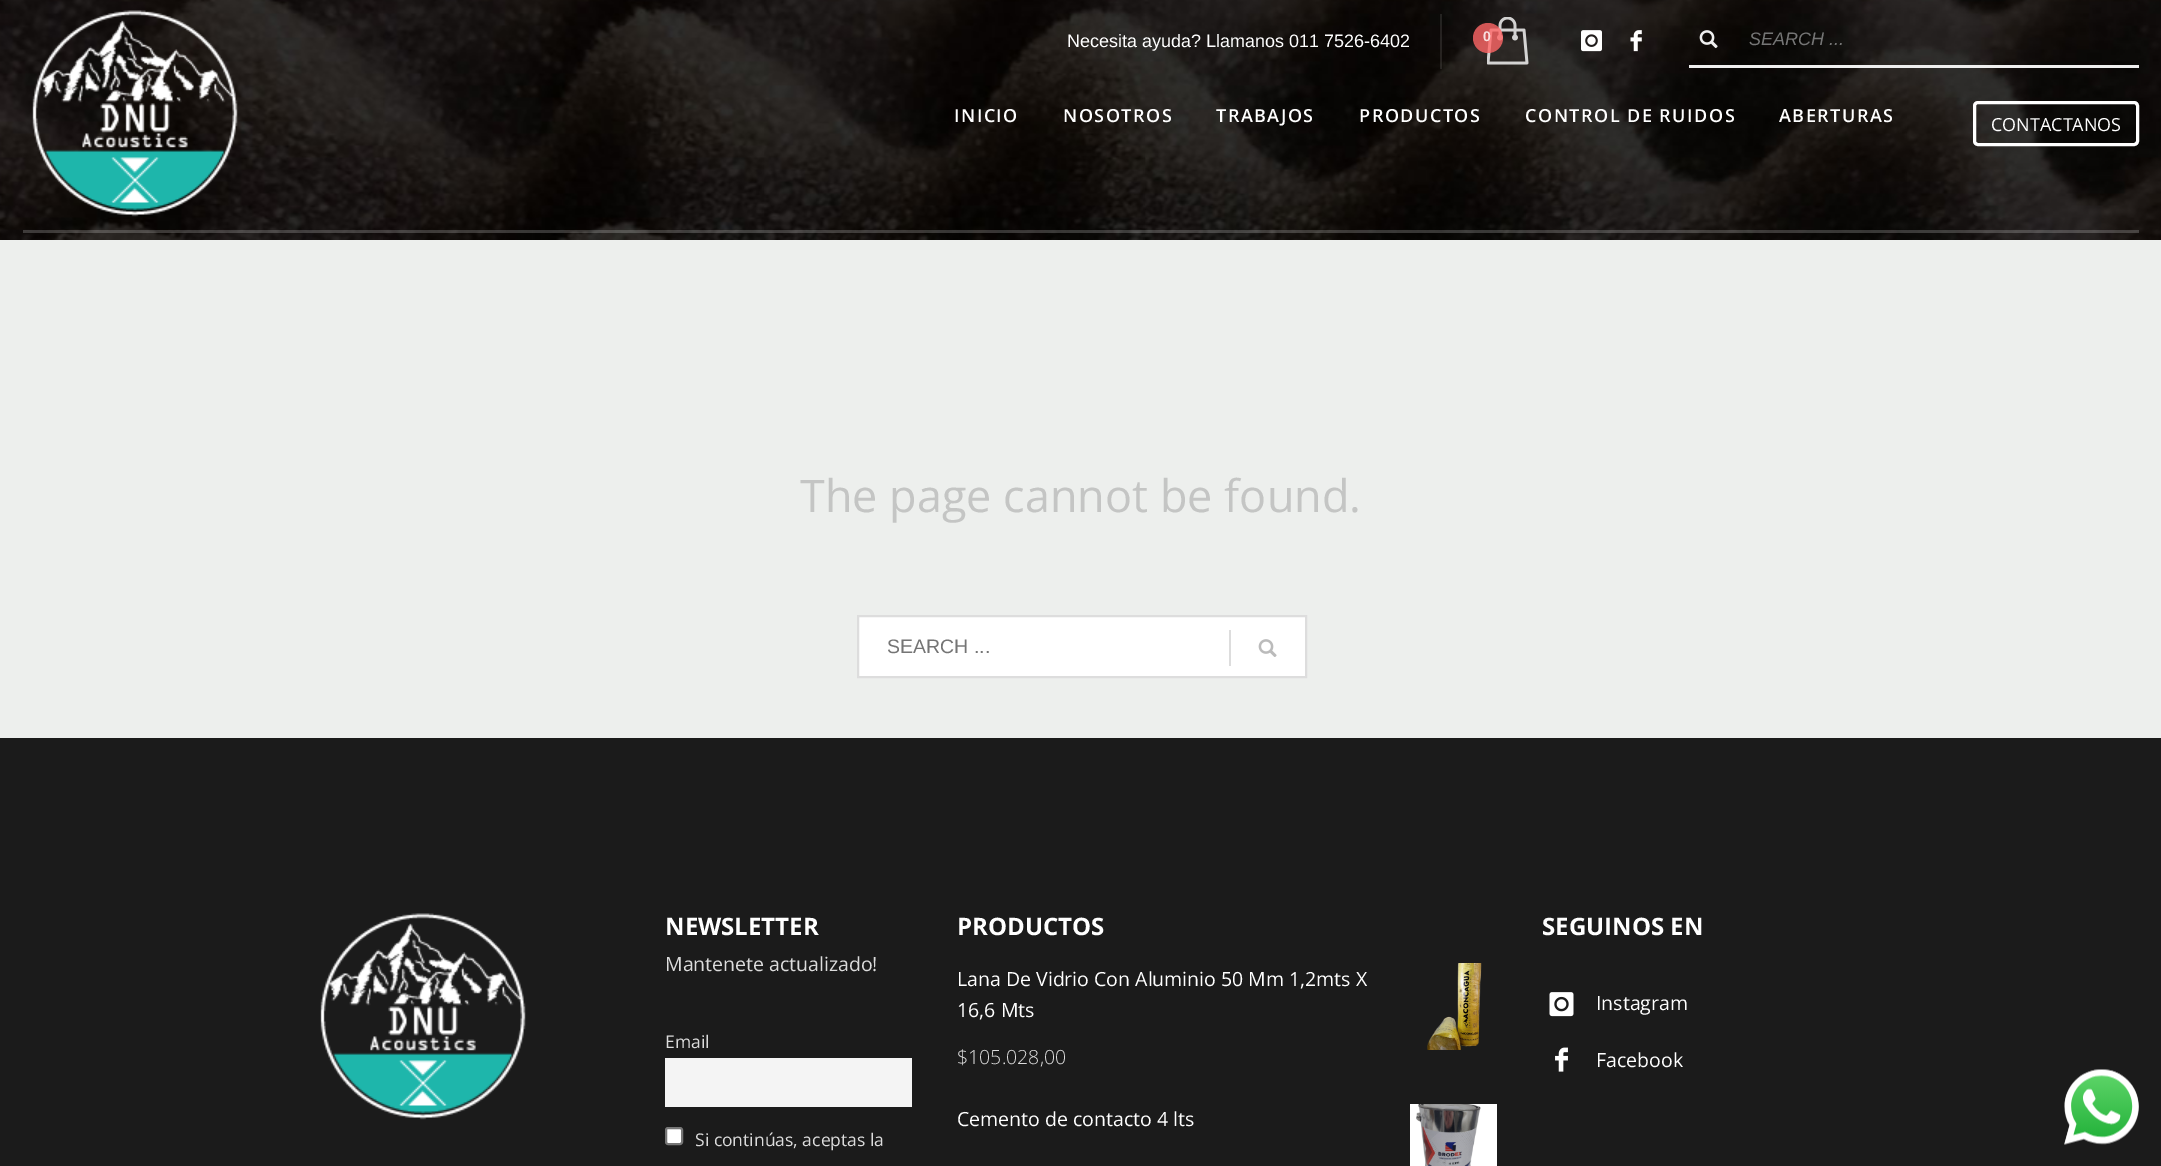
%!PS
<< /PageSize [2161 1166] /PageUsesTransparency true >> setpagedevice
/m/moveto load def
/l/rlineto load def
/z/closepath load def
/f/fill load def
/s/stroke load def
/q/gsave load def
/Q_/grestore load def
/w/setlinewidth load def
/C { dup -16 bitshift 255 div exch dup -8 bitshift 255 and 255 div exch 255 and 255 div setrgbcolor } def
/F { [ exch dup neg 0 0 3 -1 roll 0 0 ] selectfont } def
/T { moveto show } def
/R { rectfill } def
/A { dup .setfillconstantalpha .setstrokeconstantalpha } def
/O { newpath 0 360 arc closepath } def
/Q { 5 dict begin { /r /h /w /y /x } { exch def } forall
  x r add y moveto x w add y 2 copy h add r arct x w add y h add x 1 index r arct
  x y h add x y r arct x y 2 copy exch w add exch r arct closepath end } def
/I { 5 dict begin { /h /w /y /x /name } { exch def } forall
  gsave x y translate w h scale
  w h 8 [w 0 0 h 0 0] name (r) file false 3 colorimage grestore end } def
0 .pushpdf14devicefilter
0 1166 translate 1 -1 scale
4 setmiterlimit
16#EDEFED C
0 0 2161 1166 R
(1.rgb) 0 0 2161 240 I
(2.rgb) 32 10 206 207 I
/LiberationSans-Regular 18 F
16#FFFFFF C
(Necesita ayuda? Llamanos 011 7526-6402) 1067 47 T
0.1 A
1440 14 2 55 R
1 A
(3.rgb) 1487 17 42 48 I
0.8 A
16#FF6666 C
1488 38 15 O f
/LiberationSans-Bold 14 F
1 A
16#F8DFDF C
(0) 1483 41 T
(4.rgb) 1581 30 21 22 I
(5.rgb) 1630 30 12 22 I
(6.rgb) 1699 30 19 19 I
16#EFEFEF C
1689 65 450 3 R
/LiberationSans-Italic 18 F
16#757575 C
(SEARCH ...) 1749 45 T
/OpenSans-SemiBold 18 F
16#FFFFFF C
954 122 m 1.5 0 (INICIO) ashow
1063 122 m 1.5 0 (NOSOTROS) ashow
1216 122 m 1.5 0 (TRABAJOS) ashow
1359 122 m 1.5 0 (PRODUCTOS) ashow
1525 122 m 1.5 0 (CONTROL DE RUIDOS) ashow
1779 122 m 1.5 0 (ABERTURAS) ashow
3 w
1974.5 102.5 163 42 3.5 Q s
/OpenSans-Regular 18 F
(CONTACTANOS) 1991 131 T
0.2 A
23 230 2116 3 R
/OpenSans-Regular 45 F
1 A
16#C4C5C4 C
(The page cannot be found.) 800 512 T
16#FFFFFF C
858 616 m 448 0 l 0 61 l -448 0 l z q f Q_
16#DDDDDD C
2 w
s
/LiberationSans-Regular 19.5 F
16#757575 C
(SEARCH ...) 887 653 T
16#DDDDDD C
1229 630 2 36 R
(7.rgb) 1258 639 19 18 I
16#1B1B1B C
0 738 2161 428 R
(8.rgb) 320 913 206 207 I
/OpenSans-Bold 24 F
16#FFFFFF C
(NEWSLETTER) 665 935 T
/OpenSans-Regular 19.5 F
16#DCDCDC C
(Mantenete actualizado!) 665 971 T
/OpenSans-Regular 17.5 F
(Email) 665 1048 T
16#F4F4F4 C
665 1058 247 49 R
16#FFFFFF C
666 1128 16 16 2 Q q f Q_
16#767676 C
s
16#DCDCDC C
(Si continúas, aceptas la) 695 1146 T
/OpenSans-Bold 24 F
16#FFFFFF C
(PRODUCTOS) 957 935 T
/OpenSans-Regular 19.5 F
(Lana De Vidrio Con Aluminio 50 Mm 1,2mts X) 957 986 T
(9.rgb) 1427 963 55 87 I
(16,6 Mts) 957 1017 T
/OpenSans-Light 19.5 F
16#DCDCDC C
($105.028,00) 957 1064 T
/OpenSans-Regular 19.5 F
16#FFFFFF C
(Cemento de contacto 4 lts) 957 1126 T
(10.rgb) 1410 1104 87 62 I
/OpenSans-Bold 24 F
(SEGUINOS EN) 1542 935 T
(11.rgb) 1549 992 25 25 I
/OpenSans-Regular 19.5 F
(Instagram) 1596 1010 T
(12.rgb) 1555 1047 13 25 I
(Facebook) 1596 1067 T
(13.rgb) 2064 1069 75 76 I
.poppdf14devicefilter showpage
